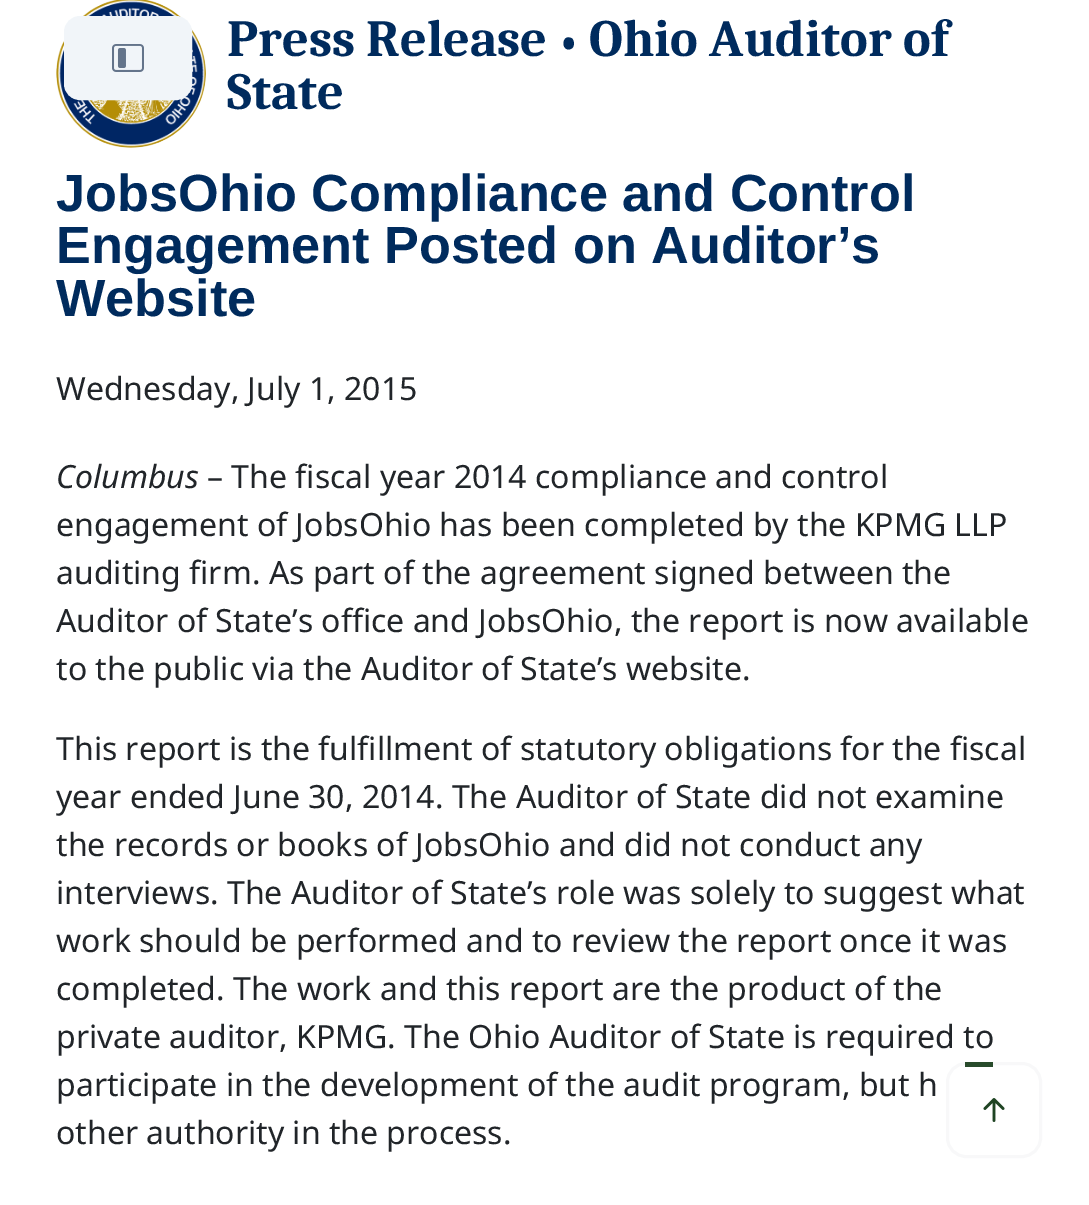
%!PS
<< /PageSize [1089 1205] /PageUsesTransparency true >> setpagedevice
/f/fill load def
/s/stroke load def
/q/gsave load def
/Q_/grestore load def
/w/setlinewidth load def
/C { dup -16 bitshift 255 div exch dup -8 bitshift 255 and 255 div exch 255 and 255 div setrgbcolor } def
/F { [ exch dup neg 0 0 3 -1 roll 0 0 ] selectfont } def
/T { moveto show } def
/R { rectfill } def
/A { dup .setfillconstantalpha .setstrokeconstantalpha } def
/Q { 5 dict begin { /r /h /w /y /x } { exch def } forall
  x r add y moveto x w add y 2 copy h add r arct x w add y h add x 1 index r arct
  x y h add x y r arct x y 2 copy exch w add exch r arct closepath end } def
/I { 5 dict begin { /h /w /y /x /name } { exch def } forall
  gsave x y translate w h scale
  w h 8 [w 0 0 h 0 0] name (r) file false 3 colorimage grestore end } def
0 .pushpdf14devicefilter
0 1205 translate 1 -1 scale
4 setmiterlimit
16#FFFFFF C
0 0 1089 1205 R
(2.rgb) 56 0 150 148 I
16#F1F5F9 C
65 17 126 82 15 Q q f Q_
2 w
s
(1.rgb) 112 44 32 28 I
/Caladea-Bold 52.25 F
16#002B5D C
(Press Release) 227 56 T
/Caladea-Bold 44 F
(•) 559 56 T
/Caladea-Bold 52.25 F
(Ohio Auditor of) 589 56 T
(State) 227 109 T
/LiberationSans-Bold 52.25 F
(JobsOhio Compliance and Control) 56 211 T
(Engagement Posted on Auditor’s) 56 263 T
(Website) 56 316 T
/NotoSans-Regular 32 F
16#212529 C
(Wednesday, July 1, 2015) 56 400 T
/NotoSans-Italic 32 F
(Columbus) 56 488 T
/NotoSans-Regular 32 F
(– The fiscal year 2014 compliance and control) 207 488 T
(engagement of JobsOhio has been completed by the KPMG LLP) 56 536 T
(auditing firm. As part of the agreement signed between the) 56 584 T
(Auditor of State’s office and JobsOhio, the report is now available) 56 632 T
(to the public via the Auditor of State’s website.) 56 680 T
(This report is the fulfillment of statutory obligations for the fiscal) 56 760 T
(year ended June 30, 2014. The Auditor of State did not examine) 56 808 T
(the records or books of JobsOhio and did not conduct any) 56 856 T
(interviews. The Auditor of State’s role was solely to suggest what) 56 904 T
(work should be performed and to review the report once it was) 56 952 T
(completed. The work and this report are the product of the) 56 1000 T
(private auditor, KPMG. The Ohio Auditor of State is required to) 56 1048 T
(participate in the development of the audit program, but h) 56 1096 T
(other authority in the process.) 56 1144 T
0.25 A
16#E3E5E9 C
3 w
947.5 1063.5 93 93 18.5 Q s
0.96 A
16#1F4423 C
965 1062 28 5 R
1 A
(3.rgb) 983 1098 22 24 I
.poppdf14devicefilter showpage
